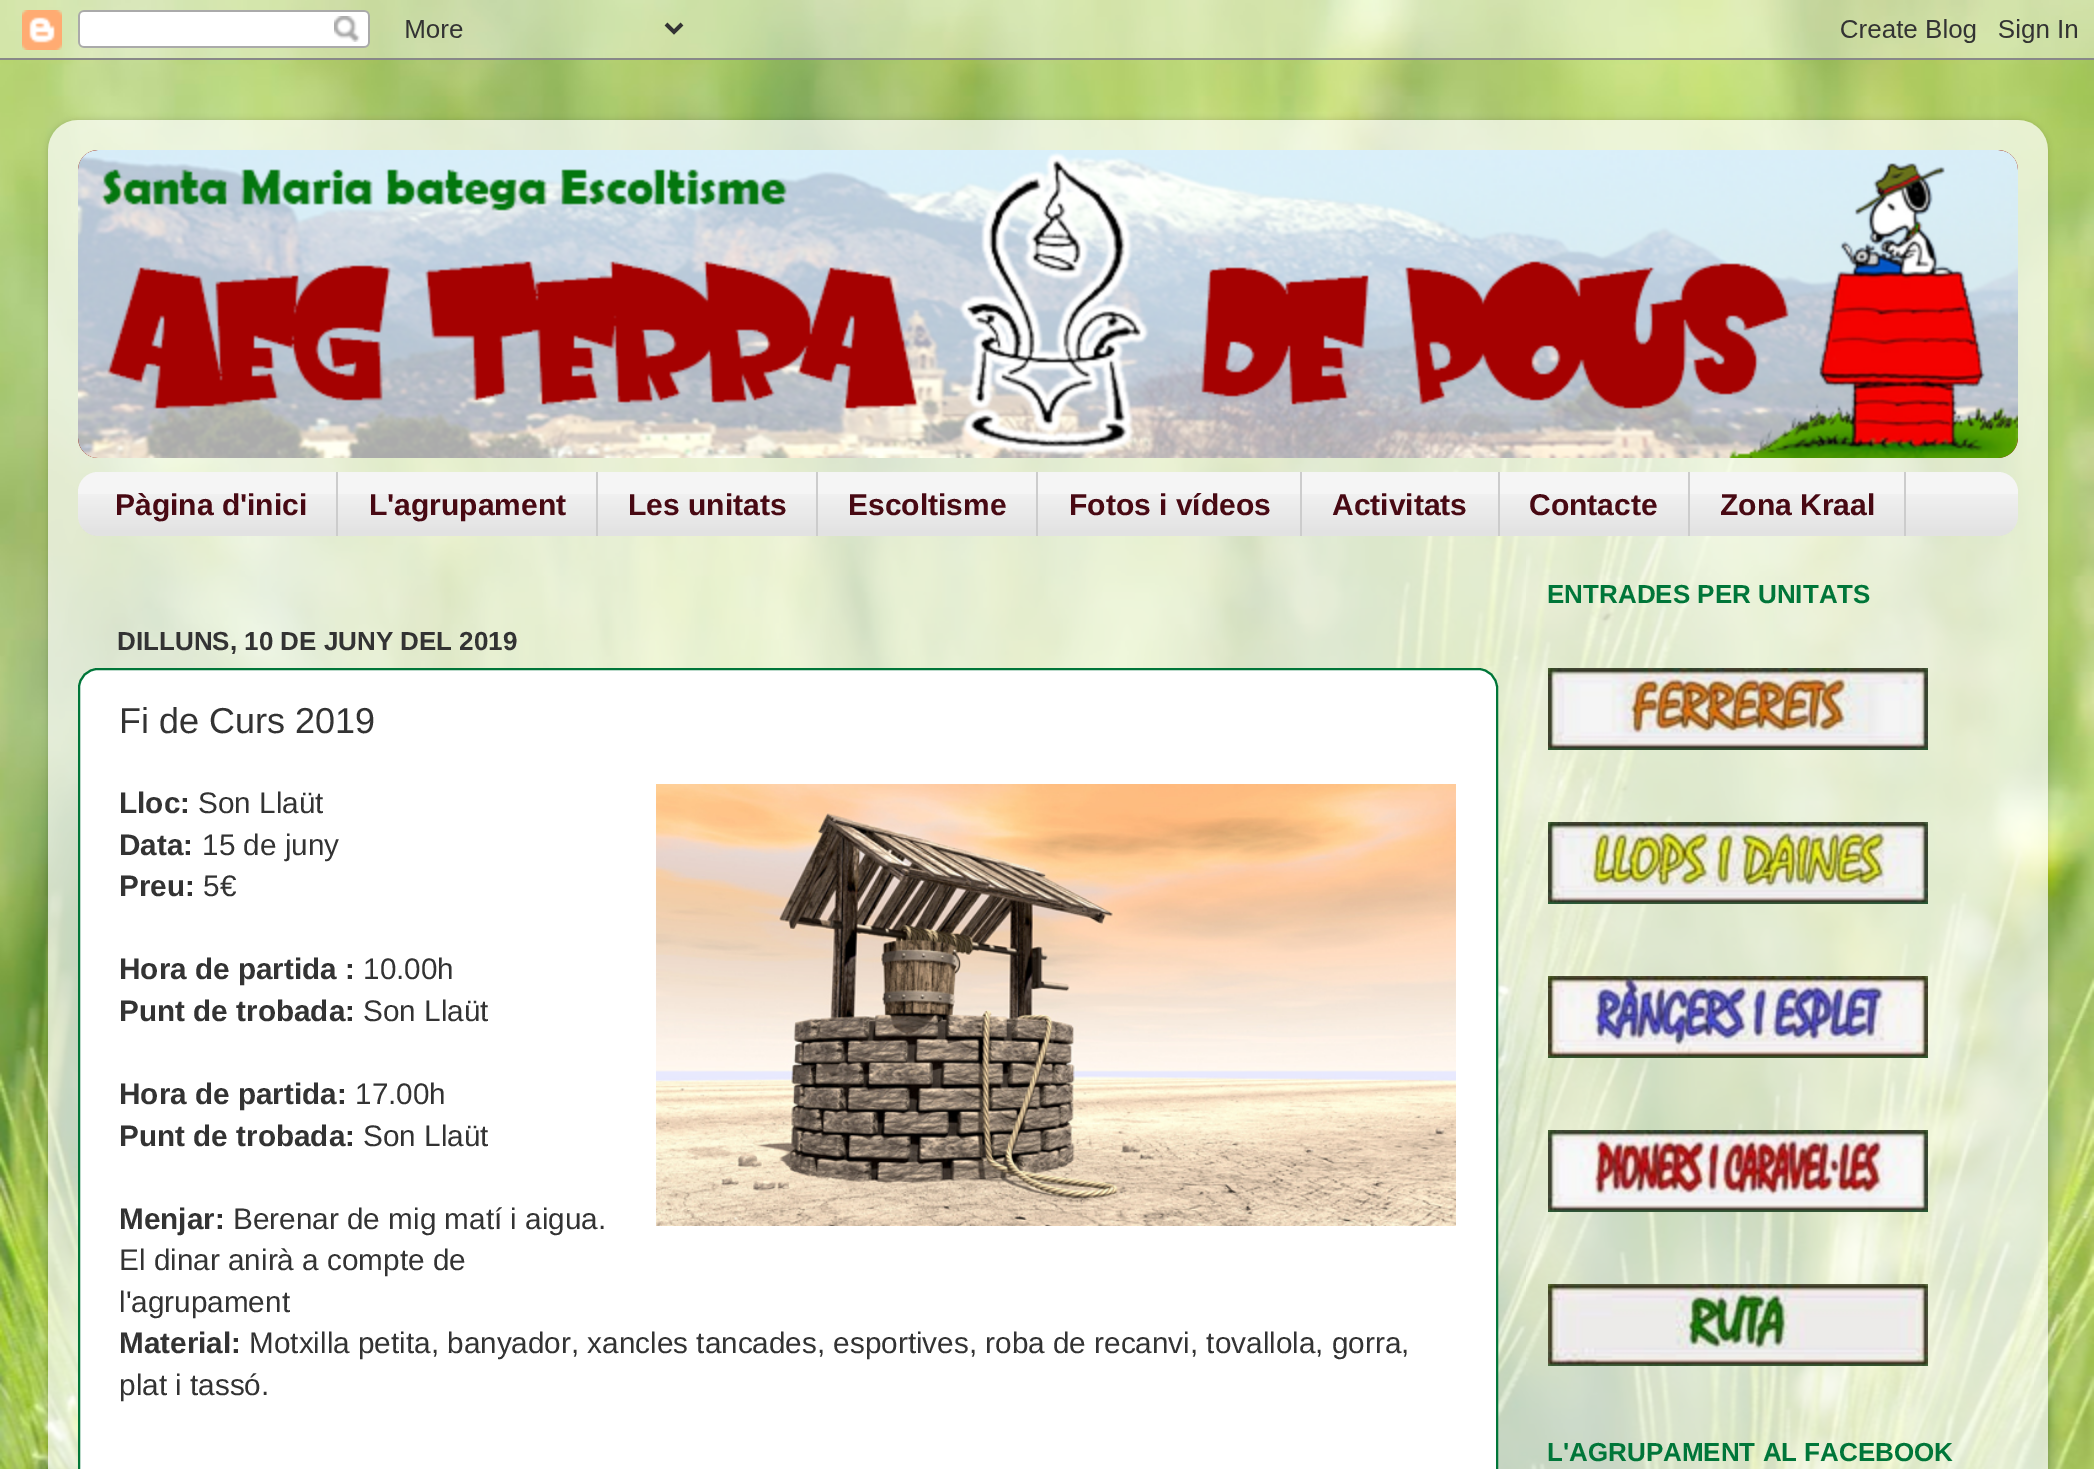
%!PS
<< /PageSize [2094 1469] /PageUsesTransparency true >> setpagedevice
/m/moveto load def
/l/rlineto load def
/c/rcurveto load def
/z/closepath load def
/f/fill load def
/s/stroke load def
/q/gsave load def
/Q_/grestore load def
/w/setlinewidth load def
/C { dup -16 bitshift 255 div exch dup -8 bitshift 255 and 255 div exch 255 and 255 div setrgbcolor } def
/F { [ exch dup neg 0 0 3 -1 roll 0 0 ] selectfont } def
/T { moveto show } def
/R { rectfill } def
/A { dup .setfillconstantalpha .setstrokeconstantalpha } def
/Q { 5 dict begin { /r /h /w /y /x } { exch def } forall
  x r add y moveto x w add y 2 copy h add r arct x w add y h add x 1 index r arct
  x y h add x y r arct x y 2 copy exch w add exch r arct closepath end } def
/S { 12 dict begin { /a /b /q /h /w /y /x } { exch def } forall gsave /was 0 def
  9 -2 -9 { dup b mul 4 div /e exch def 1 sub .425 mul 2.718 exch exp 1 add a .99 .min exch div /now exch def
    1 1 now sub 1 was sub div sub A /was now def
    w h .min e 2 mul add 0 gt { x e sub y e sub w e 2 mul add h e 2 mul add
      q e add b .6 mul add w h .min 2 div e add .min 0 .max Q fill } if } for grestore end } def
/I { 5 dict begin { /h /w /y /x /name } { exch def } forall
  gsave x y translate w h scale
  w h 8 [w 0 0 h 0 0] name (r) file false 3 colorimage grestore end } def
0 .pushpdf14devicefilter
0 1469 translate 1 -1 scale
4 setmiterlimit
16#FFFFFF C
0 0 2094 1469 R
(1.rgb) 0 0 2094 1469 I
(2.rgb) 0 0 2094 60 I
q
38 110 m 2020 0 l 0 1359 l -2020 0 l z 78 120 m 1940 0 l 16.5 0 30 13.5 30 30 c 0 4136 l 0 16.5 -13.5 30 -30 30 c -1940 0 l -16.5 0 -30 -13.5 -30 -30 c 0 -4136 l 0 -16.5 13.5 -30 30 -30 c z eoclip newpath
16#000000 C
48 120 2000 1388 30 3 .15 S
Q_
(3.rgb) 48 120 2000 1349 I
16#992211 C
78 150 1940 308 20 Q f
(4.rgb) 78 150 1940 20 I
(5.rgb) 78 150 1940 308 I
16#F5F5F5 C
78 472 1940 64 20 Q f
(6.rgb) 78 494 1940 42 I
16#CCCCCC C
336 472 2 64 R
/LiberationSans-Bold 30 F
16#480913 C
(Pàgina d'inici) 115 515 T
16#CCCCCC C
596 472 2 64 R
16#480913 C
(L'agrupament) 369 515 T
16#CCCCCC C
816 472 2 64 R
16#480913 C
(Les unitats) 628 515 T
16#CCCCCC C
1036 472 2 64 R
16#480913 C
(Escoltisme) 848 515 T
16#CCCCCC C
1300 472 2 64 R
16#480913 C
(Fotos i vídeos) 1069 515 T
16#CCCCCC C
1498 472 2 64 R
16#480913 C
(Activitats) 1332 515 T
16#CCCCCC C
1688 472 2 64 R
16#480913 C
(Contacte) 1529 515 T
16#CCCCCC C
1904 472 2 64 R
16#480913 C
(Zona Kraal) 1720 515 T
/LiberationSans-Bold 26 F
16#333333 C
(DILLUNS, 10 DE JUNY DEL 2019) 117 650 T
16#FFFFFF C
79 669 1418 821 19 Q q f Q_
16#007639 C
2 w
s
/LiberationSans-Regular 36 F
16#333333 C
(Fi de Curs 2019) 119 733 T
/LiberationSans-Bold 29.7 F
(Lloc:) 119 813 T
/LiberationSans-Regular 29.7 F
(Son Llaüt) 198 813 T
(7.rgb) 656 784 800 442 I
/LiberationSans-Bold 29.7 F
(Data:) 119 855 T
/LiberationSans-Regular 29.7 F
(15 de juny) 202 855 T
/LiberationSans-Bold 29.7 F
(Preu:) 119 896 T
/LiberationSans-Regular 29.7 F
(5€) 203 896 T
/LiberationSans-Bold 29.7 F
(Hora de partida :) 119 979 T
/LiberationSans-Regular 29.7 F
(10.00h) 363 979 T
/LiberationSans-Bold 29.7 F
(Punt de trobada:) 119 1021 T
/LiberationSans-Regular 29.7 F
(Son Llaüt) 363 1021 T
/LiberationSans-Bold 29.7 F
(Hora de partida:) 119 1104 T
/LiberationSans-Regular 29.7 F
(17.00h) 355 1104 T
/LiberationSans-Bold 29.7 F
(Punt de trobada:) 119 1146 T
/LiberationSans-Regular 29.7 F
(Son Llaüt) 363 1146 T
/LiberationSans-Bold 29.7 F
(Menjar:) 119 1229 T
/LiberationSans-Regular 29.7 F
(Berenar de mig matí i aigua.) 233 1229 T
(El dinar anirà a compte de) 119 1270 T
(l'agrupament) 119 1312 T
/LiberationSans-Bold 29.7 F
(Material:) 119 1353 T
/LiberationSans-Regular 29.7 F
(Motxilla petita, banyador, xancles tancades, esportives, roba de recanvi, tovallola, gorra,) 249 1353 T
(plat i tassó.) 119 1395 T
/LiberationSans-Bold 26 F
16#007639 C
(ENTRADES PER UNITATS) 1547 603 T
(8.rgb) 1548 668 380 82 I
(9.rgb) 1548 822 380 82 I
(10.rgb) 1548 976 380 82 I
(11.rgb) 1548 1130 380 82 I
(12.rgb) 1548 1284 380 82 I
(L'AGRUPAMENT AL FACEBOOK) 1547 1461 T
.poppdf14devicefilter showpage
